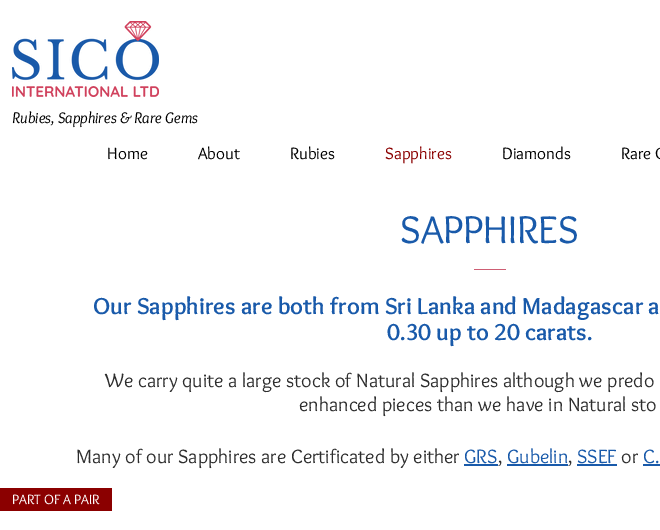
%!PS
<< /PageSize [660 530] >> setpagedevice
/C { dup -16 bitshift 255 div exch dup -8 bitshift 255 and 255 div exch 255 and 255 div setrgbcolor } def
/F { [ exch dup neg 0 0 3 -1 roll 0 0 ] selectfont } def
/T { moveto show } def
/R { rectfill } def
/I { 5 dict begin { /h /w /y /x /name } { exch def } forall
  gsave x y translate w h scale
  w h 8 [w 0 0 h 0 0] name (r) file false 3 colorimage grestore end } def
0 530 translate 1 -1 scale
4 setmiterlimit
16#FFFFFF C
0 0 660 530 R
(1.rgb) 12 21 147 76 I
/Overlock-Italic 16 F
16#000000 C
(Rubies, Sapphires & Rare Gems) 12 123 T
/Overlock-Regular 17 F
(Home) 107 159 T
(About) 198 159 T
(Rubies) 290 159 T
16#8B0000 C
(Sapphires) 385 159 T
16#000000 C
(Diamonds) 502 159 T
(Rare G) 621 159 T
/Overlock-Regular 40 F
16#195AAA C
(SAPPHIRES) 400 243 T
16#CE5E74 C
474 269 32 1 R
/Overlock-Bold 24 F
16#195AAA C
(Our Sapphires are both from Sri Lanka and Madagascar a) 93 314 T
(0.30 up to 20 carats.) 387 340 T
/Overlock-Regular 20 F
16#2E2E2E C
(We carry quite a large stock of Natural Sapphires although we predo) 105 387 T
(enhanced pieces than we have in Natural sto) 299 411 T
(Many of our Sapphires are Certificated by either) 76 463 T
16#195AAA C
(GRS) 464 463 T
464 464 34 2 R
16#2E2E2E C
(,) 498 463 T
16#195AAA C
(Gubelin) 507 463 T
507 464 61 2 R
16#2E2E2E C
(,) 568 463 T
16#195AAA C
(SSEF) 577 463 T
577 464 40 2 R
16#2E2E2E C
(or) 621 463 T
16#195AAA C
(C.) 643 463 T
643 464 17 2 R
16#8B0000 C
0 488 112 23 R
/Overlock-Regular 14 F
16#FFFFFF C
(PART OF A PAIR) 12 504 T
showpage
